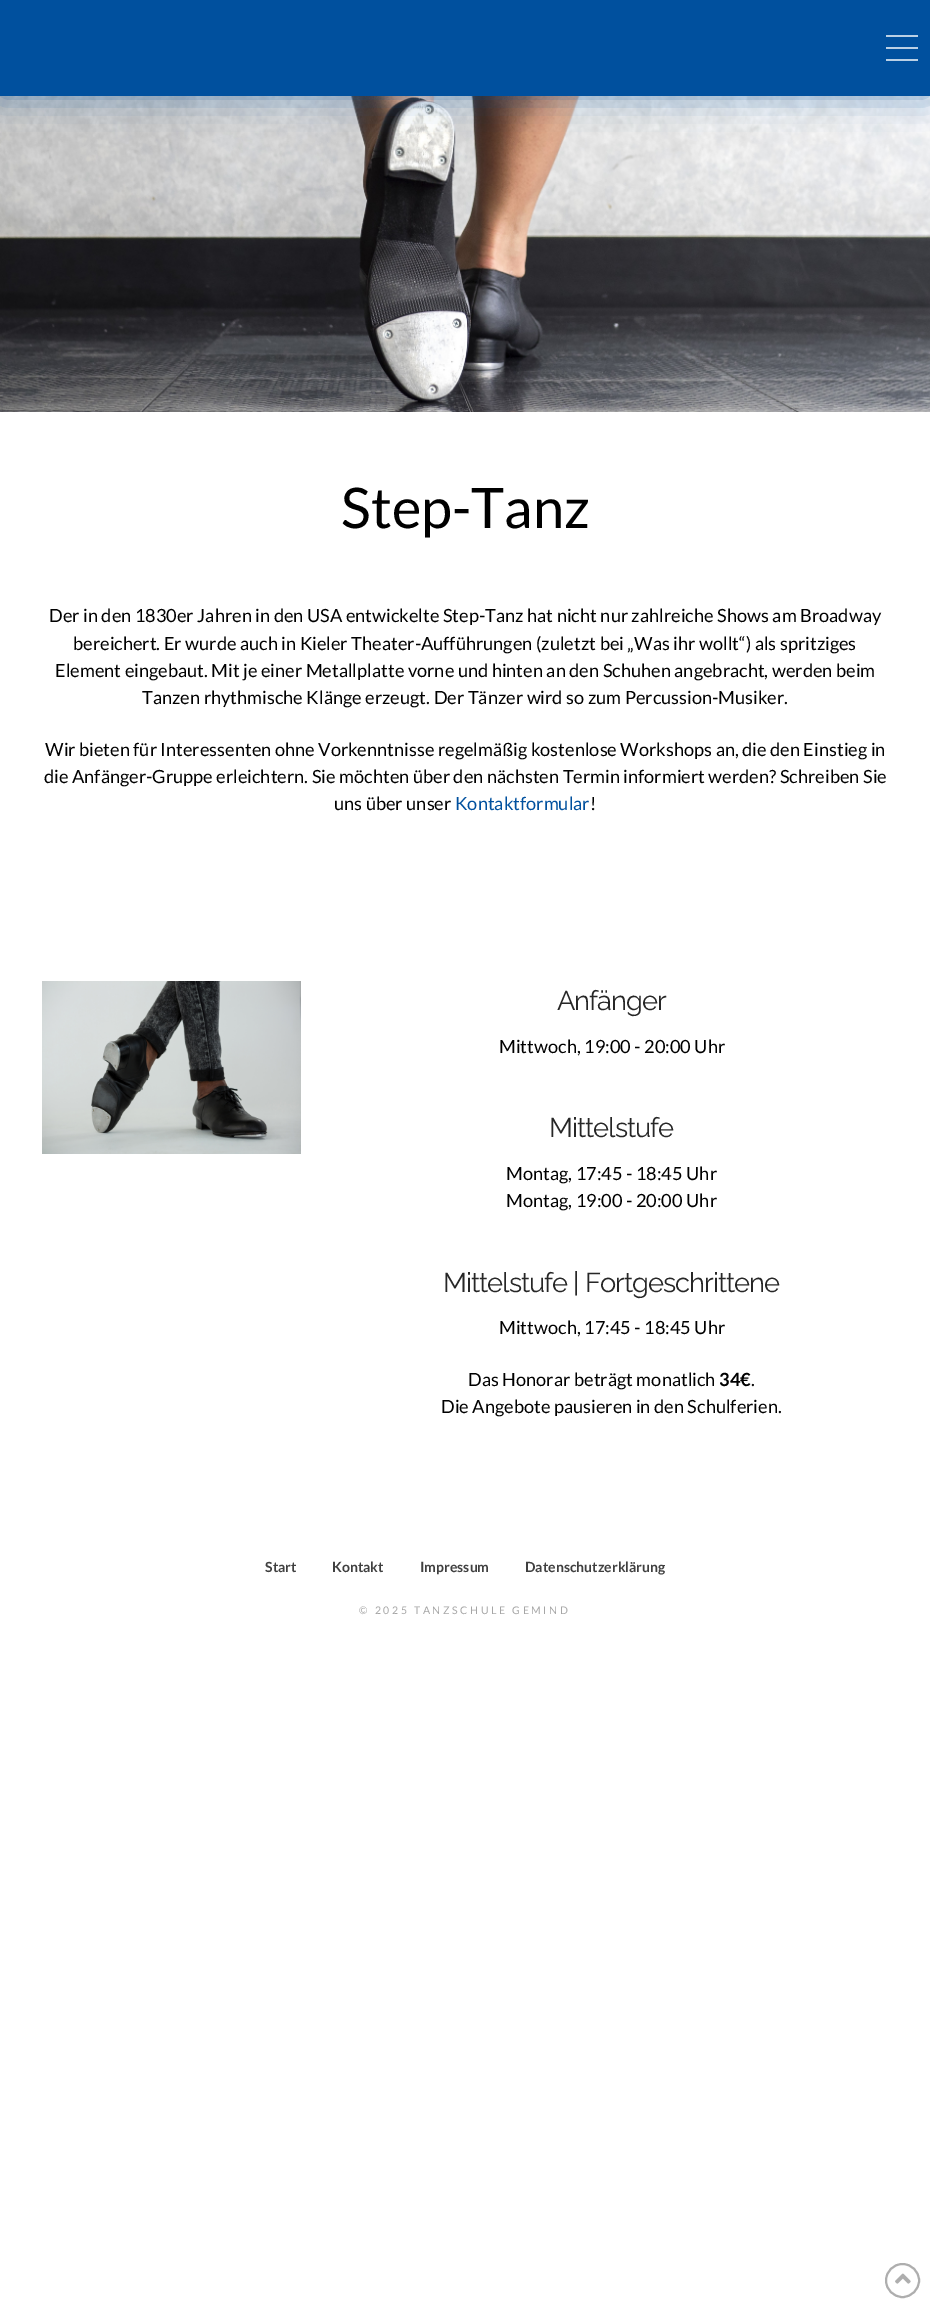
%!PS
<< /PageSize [930 2308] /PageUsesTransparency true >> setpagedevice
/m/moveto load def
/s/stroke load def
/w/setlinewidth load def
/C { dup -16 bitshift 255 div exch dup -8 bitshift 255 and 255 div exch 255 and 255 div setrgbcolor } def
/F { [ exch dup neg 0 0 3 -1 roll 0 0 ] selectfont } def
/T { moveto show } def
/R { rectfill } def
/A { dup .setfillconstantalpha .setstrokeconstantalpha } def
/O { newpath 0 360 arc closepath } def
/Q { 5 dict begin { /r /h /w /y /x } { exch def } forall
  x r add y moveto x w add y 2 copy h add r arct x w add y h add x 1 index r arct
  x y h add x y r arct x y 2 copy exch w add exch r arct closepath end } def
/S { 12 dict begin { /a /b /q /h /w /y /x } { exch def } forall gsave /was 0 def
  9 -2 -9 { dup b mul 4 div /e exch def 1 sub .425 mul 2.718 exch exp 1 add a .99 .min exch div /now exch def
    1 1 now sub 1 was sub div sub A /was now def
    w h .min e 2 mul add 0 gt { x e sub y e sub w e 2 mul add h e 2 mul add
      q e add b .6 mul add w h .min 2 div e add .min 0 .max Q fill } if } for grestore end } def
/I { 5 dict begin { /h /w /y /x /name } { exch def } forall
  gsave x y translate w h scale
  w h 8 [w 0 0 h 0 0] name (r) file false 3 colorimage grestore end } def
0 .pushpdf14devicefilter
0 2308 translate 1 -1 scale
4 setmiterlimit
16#FFFFFF C
0 0 930 2308 R
(1.rgb) 0 96 930 316 I
16#00509E C
0 0 930 96 0 16 .53 S
0 0 930 96 R
16#BAD0E5 C
886 35 32 2 R
886 47 32 2 R
886 59 32 2 R
/Lato-Regular 56 F
16#000000 C
(Step-Tanz) 341 528 T
/Lato-Regular 18.2 F
(Der in den 1830er Jahren in den USA entwickelte Step-Tanz hat nicht nur zahlreiche Shows am Broadway) 49 622 T
(bereichert. Er wurde auch in Kieler Theater-Aufführungen \(zuletzt bei „Was ihr wollt“\) als spritziges) 73 650 T
(Element eingebaut. Mit je einer Metallplatte vorne und hinten an den Schuhen angebracht, werden beim) 55 677 T
(Tanzen rhythmische Klänge erzeugt. Der Tänzer wird so zum Percussion-Musiker.) 142 704 T
(Wir bieten für Interessenten ohne Vorkenntnisse regelmäßig kostenlose Workshops an, die den Einstieg in) 45 756 T
(die Anfänger-Gruppe erleichtern. Sie möchten über den nächsten Termin informiert werden? Schreiben Sie) 44 783 T
(uns über unser) 334 810 T
16#00509E C
(Kontaktformular) 455 810 T
16#000000 C
(!) 590 810 T
(2.rgb) 42 981 259 173 I
/Raleway-Thin 27.25 F
16#272727 C
557 1010 m -.95 0 (Anfänger) ashow
/Lato-Regular 18.2 F
16#000000 C
(Mittwoch, 19:00 - 20:00 Uhr) 499 1053 T
/Raleway-Thin 27.25 F
16#272727 C
549 1137 m -.95 0 (Mittelstufe) ashow
/Lato-Regular 18.2 F
16#000000 C
(Montag, 17:45 - 18:45 Uhr) 506 1180 T
(Montag, 19:00 - 20:00 Uhr) 506 1207 T
/Raleway-Thin 27.25 F
16#272727 C
443 1292 m -.95 0 (Mittelstufe | Fortgeschrittene) ashow
/Lato-Regular 18.2 F
16#000000 C
(Mittwoch, 17:45 - 18:45 Uhr) 499 1334 T
(Das Honorar beträgt monatlich) 468 1386 T
/Lato-Bold 18.2 F
(34€) 719 1386 T
/Lato-Regular 18.2 F
(.) 751 1386 T
(Die Angebote pausieren in den Schulferien.) 441 1413 T
/Lato-Bold 14 F
16#404040 C
(Start) 265 1572 T
(Kontakt) 332 1572 T
(Impressum) 420 1572 T
(Datenschutzerklärung) 525 1572 T
/Lato-Regular 10.5 F
16#A6A6A6 C
359 1614 m 2.6 0 (© 2025 TANZSCHULE GEMIND) ashow
16#AEAEAE C
2 w
902.5 2280.5 16.5 O s
(3.rgb) 895 2273 16 11 I
.poppdf14devicefilter showpage
